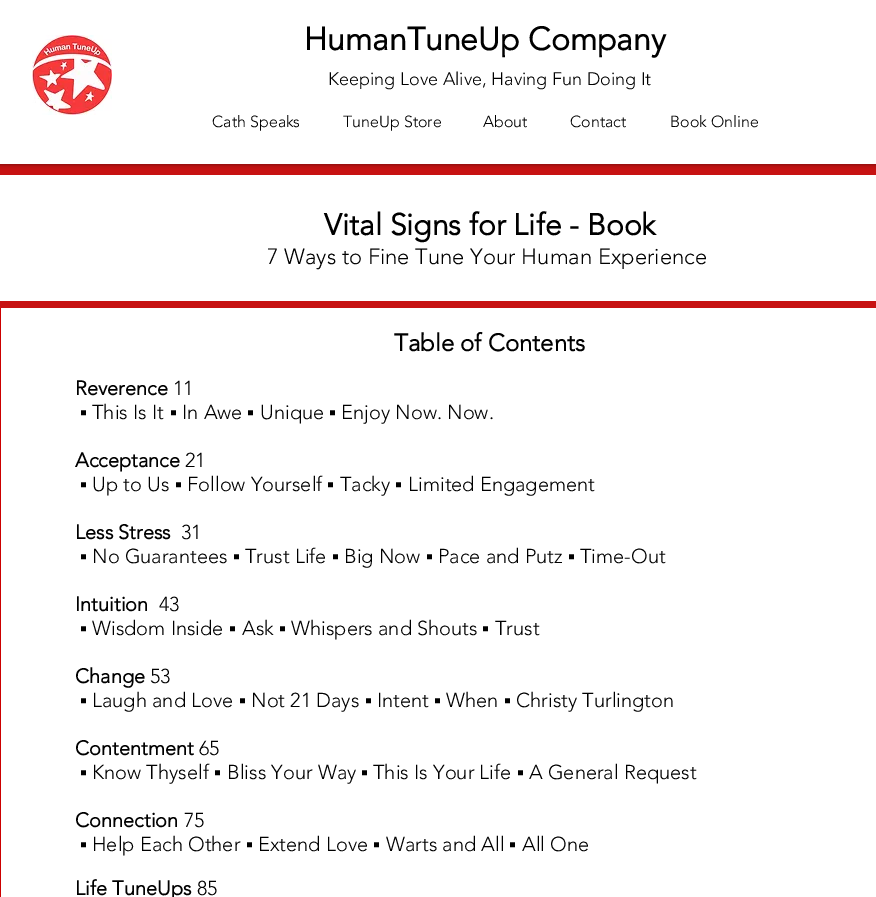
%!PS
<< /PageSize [876 897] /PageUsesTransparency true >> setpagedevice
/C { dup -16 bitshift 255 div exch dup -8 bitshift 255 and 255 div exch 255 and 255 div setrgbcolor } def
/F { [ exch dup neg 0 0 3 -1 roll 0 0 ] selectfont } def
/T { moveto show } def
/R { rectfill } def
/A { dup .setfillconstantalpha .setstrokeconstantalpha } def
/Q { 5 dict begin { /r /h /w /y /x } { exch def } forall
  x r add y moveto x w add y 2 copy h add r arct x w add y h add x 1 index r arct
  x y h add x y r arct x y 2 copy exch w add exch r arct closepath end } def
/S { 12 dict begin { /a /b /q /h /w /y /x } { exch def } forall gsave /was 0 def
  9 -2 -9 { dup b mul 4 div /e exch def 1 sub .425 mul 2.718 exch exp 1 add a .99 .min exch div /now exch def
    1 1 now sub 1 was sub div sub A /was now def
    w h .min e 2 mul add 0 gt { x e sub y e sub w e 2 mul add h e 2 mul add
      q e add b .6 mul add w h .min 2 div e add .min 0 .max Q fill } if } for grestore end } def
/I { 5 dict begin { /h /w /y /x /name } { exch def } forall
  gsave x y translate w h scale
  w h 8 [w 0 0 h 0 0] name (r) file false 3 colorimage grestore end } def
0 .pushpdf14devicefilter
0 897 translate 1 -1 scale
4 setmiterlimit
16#C71212 C
0 0 876 897 R
16#000000 C
0 0 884 164 0 2.5 .5 S
16#FFFFFF C
0 0 876 164 R
(1.rgb) 32 35 80 80 I
/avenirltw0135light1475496-Bold 32 F
16#000000 C
(HumanTuneUp Company) 304 50 T
/avenirltw0135light1475496-Light 18 F
(Keeping Love Alive, Having Fun Doing It) 328 85 T
/avenirltw0135light1475496-Light 16 F
(Cath Speaks) 212 127 T
(TuneUp Store) 343 127 T
(About) 483 127 T
(Contact) 570 127 T
(Book Online) 670 127 T
16#FFFFFF C
0 175 876 126 R
/avenirltw0135light1475496-Bold 30 F
16#000000 C
(Vital Signs for Life - Book) 324 235 T
/avenirltw0135light1475496-Light 22 F
(7 Ways to Fine Tune Your Human Experience) 267 264 T
16#FFFFFF C
1 308 875 589 R
16#CC0000 C
0 308 1 589 R
/avenirltw0135light1475496-Bold 24 F
16#000000 C
(Table of Contents) 394 351 T
/avenirltw0135light1475496-Bold 20 F
(Reverence) 75 395 T
/avenirltw0135light1475496-Light 20 F
(11) 173 395 T
/LiberationSans-Regular 20 F
(▪) 80 419 T
/avenirltw0135light1475496-Light 20 F
(This Is It) 92 419 T
/LiberationSans-Regular 20 F
(▪) 170 419 T
/avenirltw0135light1475496-Light 20 F
(In Awe) 182 419 T
/LiberationSans-Regular 20 F
(▪) 247 419 T
/avenirltw0135light1475496-Light 20 F
(Unique) 260 419 T
/LiberationSans-Regular 20 F
(▪) 329 419 T
/avenirltw0135light1475496-Light 20 F
(Enjoy Now. Now.) 341 419 T
/avenirltw0135light1475496-Bold 20 F
(Acceptance) 75 467 T
/avenirltw0135light1475496-Light 20 F
(21) 185 467 T
/LiberationSans-Regular 20 F
(▪) 80 491 T
/avenirltw0135light1475496-Light 20 F
(Up to Us) 92 491 T
/LiberationSans-Regular 20 F
(▪) 175 491 T
/avenirltw0135light1475496-Light 20 F
(Follow Yourself) 187 491 T
/LiberationSans-Regular 20 F
(▪) 327 491 T
/avenirltw0135light1475496-Light 20 F
(Tacky) 340 491 T
/LiberationSans-Regular 20 F
(▪) 395 491 T
/avenirltw0135light1475496-Light 20 F
(Limited Engagement) 408 491 T
/avenirltw0135light1475496-Bold 20 F
(Less Stress) 75 539 T
/avenirltw0135light1475496-Light 20 F
(31) 181 539 T
/LiberationSans-Regular 20 F
(▪) 80 563 T
/avenirltw0135light1475496-Light 20 F
(No Guarantees) 92 563 T
/LiberationSans-Regular 20 F
(▪) 233 563 T
/avenirltw0135light1475496-Light 20 F
(Trust Life) 245 563 T
/LiberationSans-Regular 20 F
(▪) 332 563 T
/avenirltw0135light1475496-Light 20 F
(Big Now) 344 563 T
/LiberationSans-Regular 20 F
(▪) 426 563 T
/avenirltw0135light1475496-Light 20 F
(Pace and Putz) 438 563 T
/LiberationSans-Regular 20 F
(▪) 568 563 T
/avenirltw0135light1475496-Light 20 F
(Time-Out) 580 563 T
/avenirltw0135light1475496-Bold 20 F
(Intuition) 75 611 T
/avenirltw0135light1475496-Light 20 F
(43) 159 611 T
/LiberationSans-Regular 20 F
(▪) 80 635 T
/avenirltw0135light1475496-Light 20 F
(Wisdom Inside) 92 635 T
/LiberationSans-Regular 20 F
(▪) 229 635 T
/avenirltw0135light1475496-Light 20 F
(Ask) 242 635 T
/LiberationSans-Regular 20 F
(▪) 279 635 T
/avenirltw0135light1475496-Light 20 F
(Whispers and Shouts) 291 635 T
/LiberationSans-Regular 20 F
(▪) 482 635 T
/avenirltw0135light1475496-Light 20 F
(Trust) 495 635 T
/avenirltw0135light1475496-Bold 20 F
(Change) 75 683 T
/avenirltw0135light1475496-Light 20 F
(53) 150 683 T
/LiberationSans-Regular 20 F
(▪) 80 707 T
/avenirltw0135light1475496-Light 20 F
(Laugh and Love) 92 707 T
/LiberationSans-Regular 20 F
(▪) 239 707 T
/avenirltw0135light1475496-Light 20 F
(Not 21 Days) 251 707 T
/LiberationSans-Regular 20 F
(▪) 365 707 T
/avenirltw0135light1475496-Light 20 F
(Intent) 377 707 T
/LiberationSans-Regular 20 F
(▪) 434 707 T
/avenirltw0135light1475496-Light 20 F
(When) 446 707 T
/LiberationSans-Regular 20 F
(▪) 504 707 T
/avenirltw0135light1475496-Light 20 F
(Christy Turlington) 516 707 T
/avenirltw0135light1475496-Bold 20 F
(Contentment) 75 755 T
/avenirltw0135light1475496-Light 20 F
(65) 199 755 T
/LiberationSans-Regular 20 F
(▪) 80 779 T
/avenirltw0135light1475496-Light 20 F
(Know Thyself) 92 779 T
/LiberationSans-Regular 20 F
(▪) 214 779 T
/avenirltw0135light1475496-Light 20 F
(Bliss Your Way) 227 779 T
/LiberationSans-Regular 20 F
(▪) 361 779 T
/avenirltw0135light1475496-Light 20 F
(This Is Your Life) 373 779 T
/LiberationSans-Regular 20 F
(▪) 517 779 T
/avenirltw0135light1475496-Light 20 F
(A General Request) 529 779 T
/avenirltw0135light1475496-Bold 20 F
(Connection) 75 827 T
/avenirltw0135light1475496-Light 20 F
(75) 184 827 T
/LiberationSans-Regular 20 F
(▪) 80 851 T
/avenirltw0135light1475496-Light 20 F
(Help Each Other) 92 851 T
/LiberationSans-Regular 20 F
(▪) 246 851 T
/avenirltw0135light1475496-Light 20 F
(Extend Love) 258 851 T
/LiberationSans-Regular 20 F
(▪) 373 851 T
/avenirltw0135light1475496-Light 20 F
(Warts and All) 386 851 T
/LiberationSans-Regular 20 F
(▪) 509 851 T
/avenirltw0135light1475496-Light 20 F
(All One) 522 851 T
/avenirltw0135light1475496-Bold 20 F
(Life TuneUps) 75 895 T
/avenirltw0135light1475496-Light 20 F
(85) 197 895 T
.poppdf14devicefilter showpage
